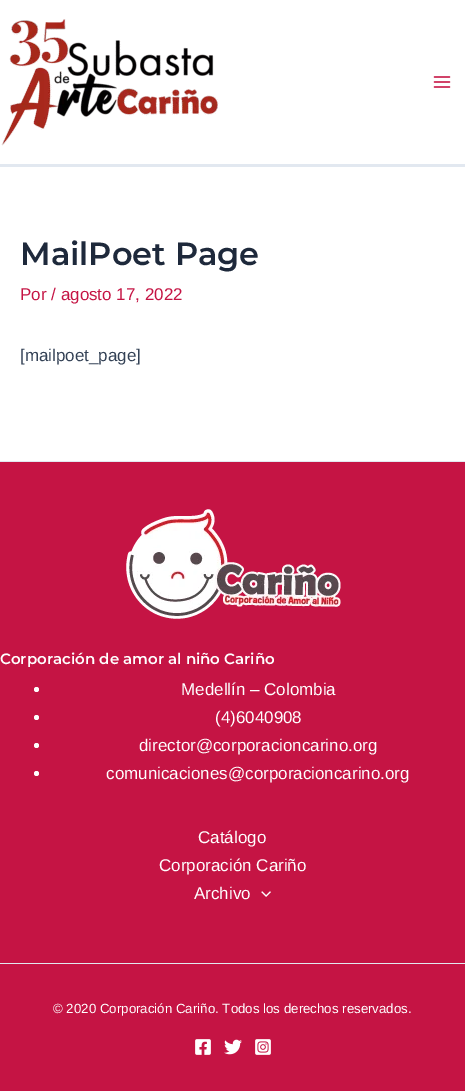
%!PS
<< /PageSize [465 1091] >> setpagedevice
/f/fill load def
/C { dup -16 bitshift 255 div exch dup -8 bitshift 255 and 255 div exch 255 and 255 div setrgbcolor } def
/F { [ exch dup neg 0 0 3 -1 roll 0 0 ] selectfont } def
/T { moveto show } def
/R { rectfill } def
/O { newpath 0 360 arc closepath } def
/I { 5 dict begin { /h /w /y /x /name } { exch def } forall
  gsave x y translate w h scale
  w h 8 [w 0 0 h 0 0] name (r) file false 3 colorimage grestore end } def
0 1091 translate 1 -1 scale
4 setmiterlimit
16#FFFFFF C
0 0 465 1091 R
16#E2E8F0 C
0 164 465 3 R
(1.rgb) 1 19 218 127 I
(2.rgb) 433 76 18 12 I
/Montserrat-SemiBold 32 F
16#1E293B C
(MailPoet Page) 20 265 T
/LiberationSans-Regular 17 F
16#C51444 C
(Por / agosto 17, 2022) 20 300 T
16#334155 C
([mailpoet_page]) 20 361 T
16#C51444 C
0 462 465 629 R
16#E2E8F0 C
0 461 465 1 R
(3.rgb) 126 509 215 110 I
/Montserrat-SemiBold 15 F
16#FFFFFF C
(Corporación de amor al niño Cariño) 0 664 T
36.5 689.5 2.5 O f
/LiberationSans-Regular 17 F
(Medellín – Colombia) 181 695 T
36.5 717.5 2.5 O f
(\(4\)6040908) 215 723 T
36.5 745.5 2.5 O f
(director@corporacioncarino.org) 139 751 T
36.5 773.5 2.5 O f
(comunicaciones@corporacioncarino.org) 106 779 T
(Catálogo) 198 843 T
(Corporación Cariño) 159 871 T
(Archivo) 194 899 T
(4.rgb) 261 891 10 6 I
16#E2E8F0 C
0 963 465 1 R
/LiberationSans-Regular 13.3 F
16#FFFFFF C
(© 2020 Corporación Cariño. Todos los derechos reservados.) 53 1013 T
(5.rgb) 195 1039 16 16 I
(6.rgb) 224 1039 18 16 I
(7.rgb) 255 1039 16 16 I
showpage
